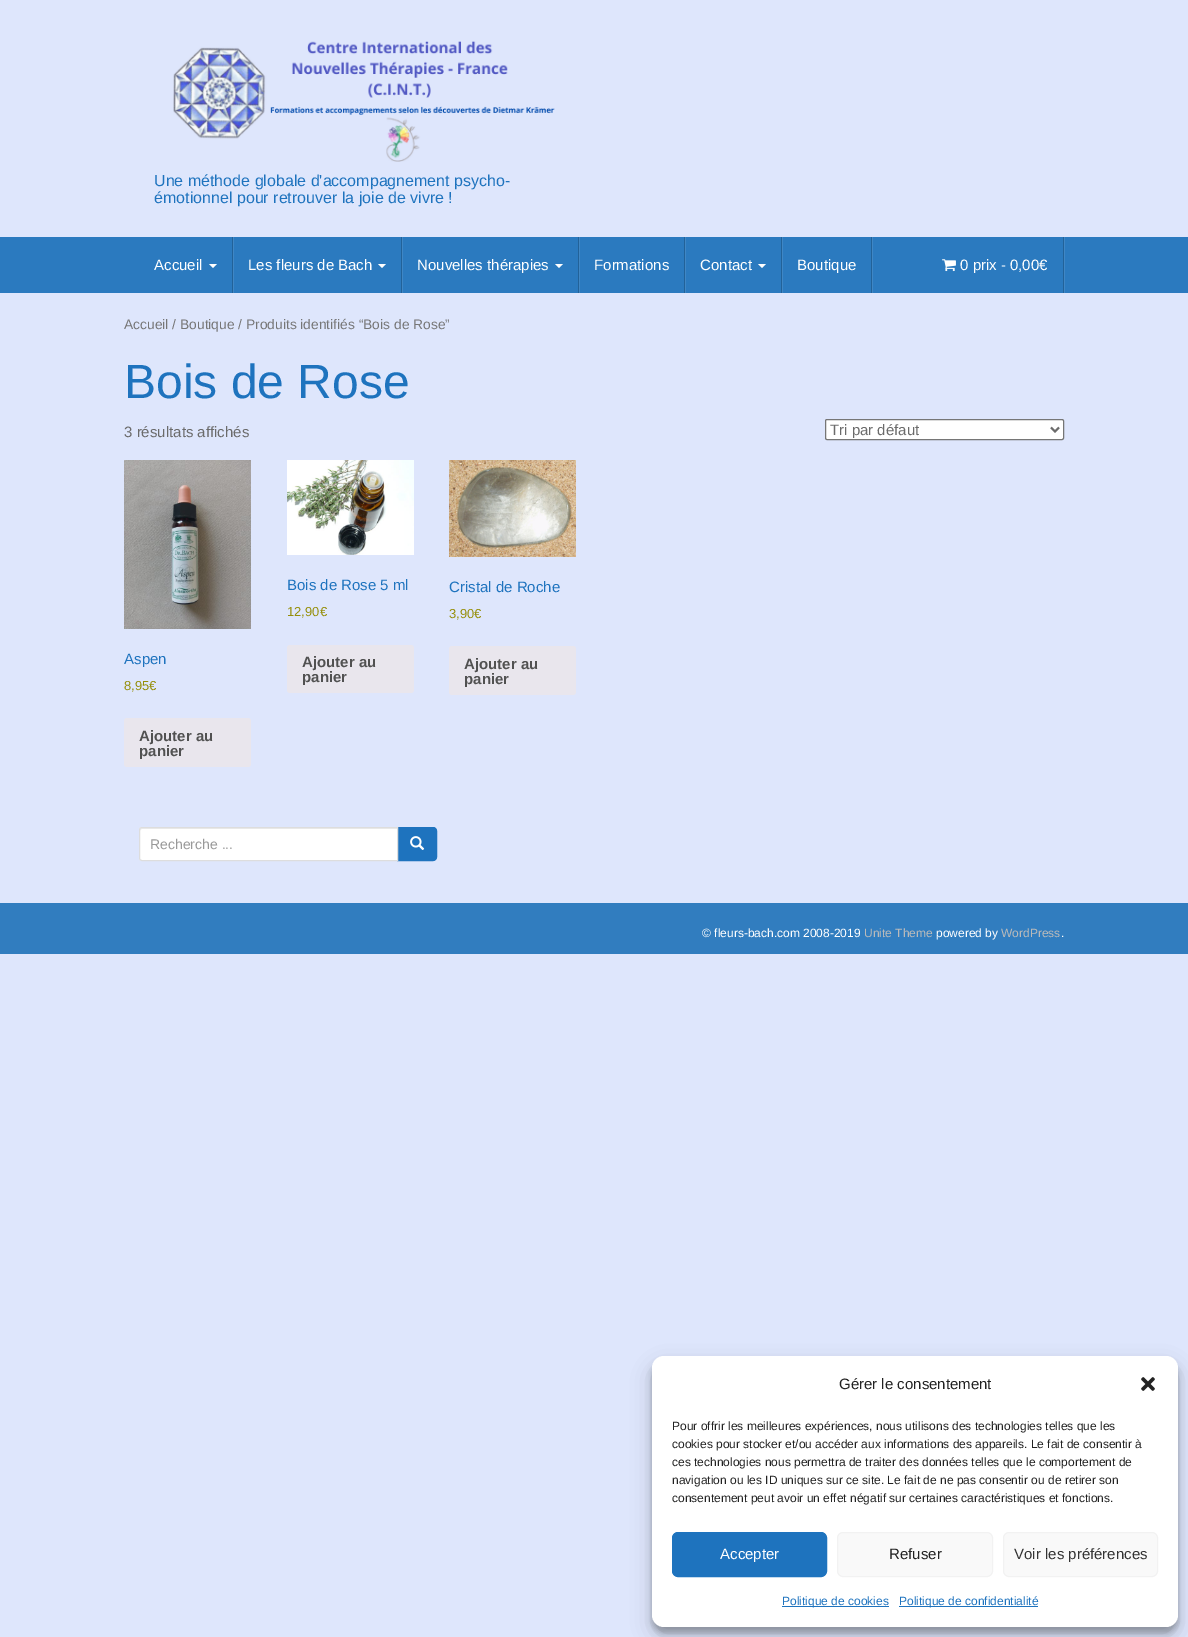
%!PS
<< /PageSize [1188 1637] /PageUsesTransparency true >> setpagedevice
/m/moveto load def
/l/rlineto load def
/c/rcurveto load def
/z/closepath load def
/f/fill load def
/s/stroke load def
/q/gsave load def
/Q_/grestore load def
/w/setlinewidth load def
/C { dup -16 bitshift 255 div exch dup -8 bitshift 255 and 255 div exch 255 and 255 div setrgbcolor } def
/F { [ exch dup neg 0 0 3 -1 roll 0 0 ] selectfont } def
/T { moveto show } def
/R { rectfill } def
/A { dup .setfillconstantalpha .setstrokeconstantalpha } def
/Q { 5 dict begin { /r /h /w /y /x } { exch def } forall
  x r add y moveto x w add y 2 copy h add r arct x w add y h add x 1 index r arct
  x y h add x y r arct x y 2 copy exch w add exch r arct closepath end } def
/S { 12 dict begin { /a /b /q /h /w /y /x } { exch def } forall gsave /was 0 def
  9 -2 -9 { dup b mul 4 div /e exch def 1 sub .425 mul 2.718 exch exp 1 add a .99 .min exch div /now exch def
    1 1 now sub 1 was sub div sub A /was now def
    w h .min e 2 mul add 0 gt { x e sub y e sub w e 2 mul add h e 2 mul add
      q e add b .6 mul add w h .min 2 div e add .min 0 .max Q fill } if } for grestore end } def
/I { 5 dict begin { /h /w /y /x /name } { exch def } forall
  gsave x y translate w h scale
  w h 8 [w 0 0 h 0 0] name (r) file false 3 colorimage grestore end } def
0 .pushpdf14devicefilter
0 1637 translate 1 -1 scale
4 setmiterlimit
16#DEE6FC C
0 0 1188 1637 R
(1.rgb) 173 41 382 121 I
/LiberationSans-Regular 16 F
16#1E73BE C
(Une méthode globale d'accompagnement psycho-) 154 186 T
(émotionnel pour retrouver la joie de vivre !) 154 203 T
16#2B7ABF C
0 237 1188 56 R
16#4087C5 C
233 237 1 56 R
16#226299 C
232 237 1 56 R
/LiberationSans-Regular 15 F
16#FFFFFF C
(Accueil) 154 270 T
209 264 m 8 0 l -4 4 l z f
16#4087C5 C
402 237 1 56 R
16#226299 C
401 237 1 56 R
16#FFFFFF C
(Les fleurs de Bach) 248 270 T
378 264 m 8 0 l -4 4 l z f
16#4087C5 C
579 237 1 56 R
16#226299 C
578 237 1 56 R
16#FFFFFF C
(Nouvelles thérapies) 417 270 T
555 264 m 8 0 l -4 4 l z f
16#4087C5 C
685 237 1 56 R
16#226299 C
684 237 1 56 R
16#FFFFFF C
(Formations) 594 270 T
16#4087C5 C
782 237 1 56 R
16#226299 C
781 237 1 56 R
16#FFFFFF C
(Contact) 700 270 T
758 264 m 8 0 l -4 4 l z f
16#4087C5 C
872 237 1 56 R
16#226299 C
871 237 1 56 R
16#FFFFFF C
(Boutique) 797 270 T
16#4087C5 C
1064 237 1 56 R
16#226299 C
1063 237 1 56 R
(2.rgb) 942 259 14 13 I
16#FFFFFF C
(0 prix - 0,00€) 960 270 T
/LiberationSans-Regular 13.8 F
16#767676 C
(Accueil / Boutique / Produits identifiés “Bois de Rose”) 124 329 T
/LiberationSans-Regular 48 F
16#1E73BE C
(Bois de Rose) 124 398 T
/LiberationSans-Regular 15 F
16#6B6B6B C
(3 résultats affichés) 124 437 T
16#FFFFFF C
825.5 419.5 238 20 1.5 Q q f Q_
16#767676 C
s
16#6B6B6B C
2 w
1051 427.5 m 4 4 l 4 -4 l s
(Tri par défaut) 830 435 T
(3.rgb) 287 460 127 95 I
16#1E73BE C
(Bois de Rose 5 ml) 287 590 T
/LiberationSans-Regular 13 F
16#958E09 C
(12,90€) 287 616 T
16#E9E6ED C
287 645 127 48 3 Q f
/LiberationSans-Bold 15 F
16#515151 C
(Ajouter au) 302 667 T
(panier) 302 682 T
(4.rgb) 449 460 127 97 I
/LiberationSans-Regular 15 F
16#1E73BE C
(Cristal de Roche) 449 592 T
/LiberationSans-Regular 13 F
16#958E09 C
(3,90€) 449 618 T
16#E9E6ED C
449 646 127 49 3 Q f
/LiberationSans-Bold 15 F
16#515151 C
(Ajouter au) 464 669 T
(panier) 464 684 T
(5.rgb) 124 460 127 169 I
/LiberationSans-Regular 15 F
16#1E73BE C
(Aspen) 124 664 T
/LiberationSans-Regular 13 F
16#958E09 C
(8,95€) 124 690 T
16#E9E6ED C
124 718 127 49 3 Q f
/LiberationSans-Bold 15 F
16#515151 C
(Ajouter au) 139 741 T
(panier) 139 756 T
16#1E73BE C
397.5 827.5 m 35.5 0 l 2 0 3.5 1.5 3.5 3.5 c 0 26 l 0 2 -1.5 3.5 -3.5 3.5 c -35.5 0 l z q f Q_
1 w
s
16#FFFFFF C
142 827 m 256 0 l 0 34 l -256 0 l -1.5 0 -3 -1.5 -3 -3 c 0 -28 l 0 -1.5 1.5 -3 3 -3 c z f
16#ECECEC C
142 829 m 255 0 l 0 -1 l -255 0 l -2 0 -2 2 -2 3 c 0 -1 1 -2 2 -2 c z f
16#DDDDDD C
142 827.5 m 255.5 0 l 0 33 l -255.5 0 l -1.5 0 -2.5 -1 -2.5 -2.5 c 0 -28 l 0 -1.5 1 -2.5 2.5 -2.5 c z s
/LiberationSans-Regular 14 F
16#999999 C
(Recherche ...) 150 849 T
(6.rgb) 410 836 15 14 I
16#317DBF C
0 903 1188 51 R
/LiberationSans-Regular 12 F
16#FFFFFF C
(© fleurs-bach.com 2008-2019) 702 937 T
16#BABABA C
(Unite Theme) 864 937 T
16#FFFFFF C
(powered by) 936 937 T
16#BABABA C
(WordPress) 1001 937 T
16#FFFFFF C
(.) 1061 937 T
16#000000 C
652 1362 526 271 12 3 .23 S
652 1366 526 271 12 10 .19 S
16#FFFFFF C
652 1356 526 271 12 Q f
/LiberationSans-Regular 15 F
16#222222 C
(Gérer le consentement) 839 1389 T
(7.rgb) 1141 1377 14 14 I
/LiberationSans-Regular 12 F
(Pour offrir les meilleures expériences, nous utilisons des technologies telles que les) 672 1430 T
(cookies pour stocker et/ou accéder aux informations des appareils. Le fait de consentir à) 672 1448 T
(ces technologies nous permettra de traiter des données telles que le comportement de) 672 1466 T
(navigation ou les ID uniques sur ce site. Le fait de ne pas consentir ou de retirer son) 672 1484 T
(consentement peut avoir un effet négatif sur certaines caractéristiques et fonctions.) 672 1502 T
16#1E73BE C
672.5 1532.5 154 44 5.5 Q q f Q_
s
/LiberationSans-Regular 15 F
16#FFFFFF C
(Accepter) 720 1559 T
16#F9F9F9 C
837.5 1532.5 155 44 5.5 Q q f Q_
16#F2F2F2 C
s
16#222222 C
(Refuser) 889 1559 T
16#F9F9F9 C
1003.5 1532.5 154 44 5.5 Q q f Q_
16#F2F2F2 C
s
16#333333 C
(Voir les préférences) 1014 1559 T
16#1E73BE C
782 1606 107 1 R
/LiberationSans-Regular 12 F
(Politique de cookies) 782 1605 T
899 1606 139 1 R
(Politique de confidentialité) 899 1605 T
.poppdf14devicefilter showpage
